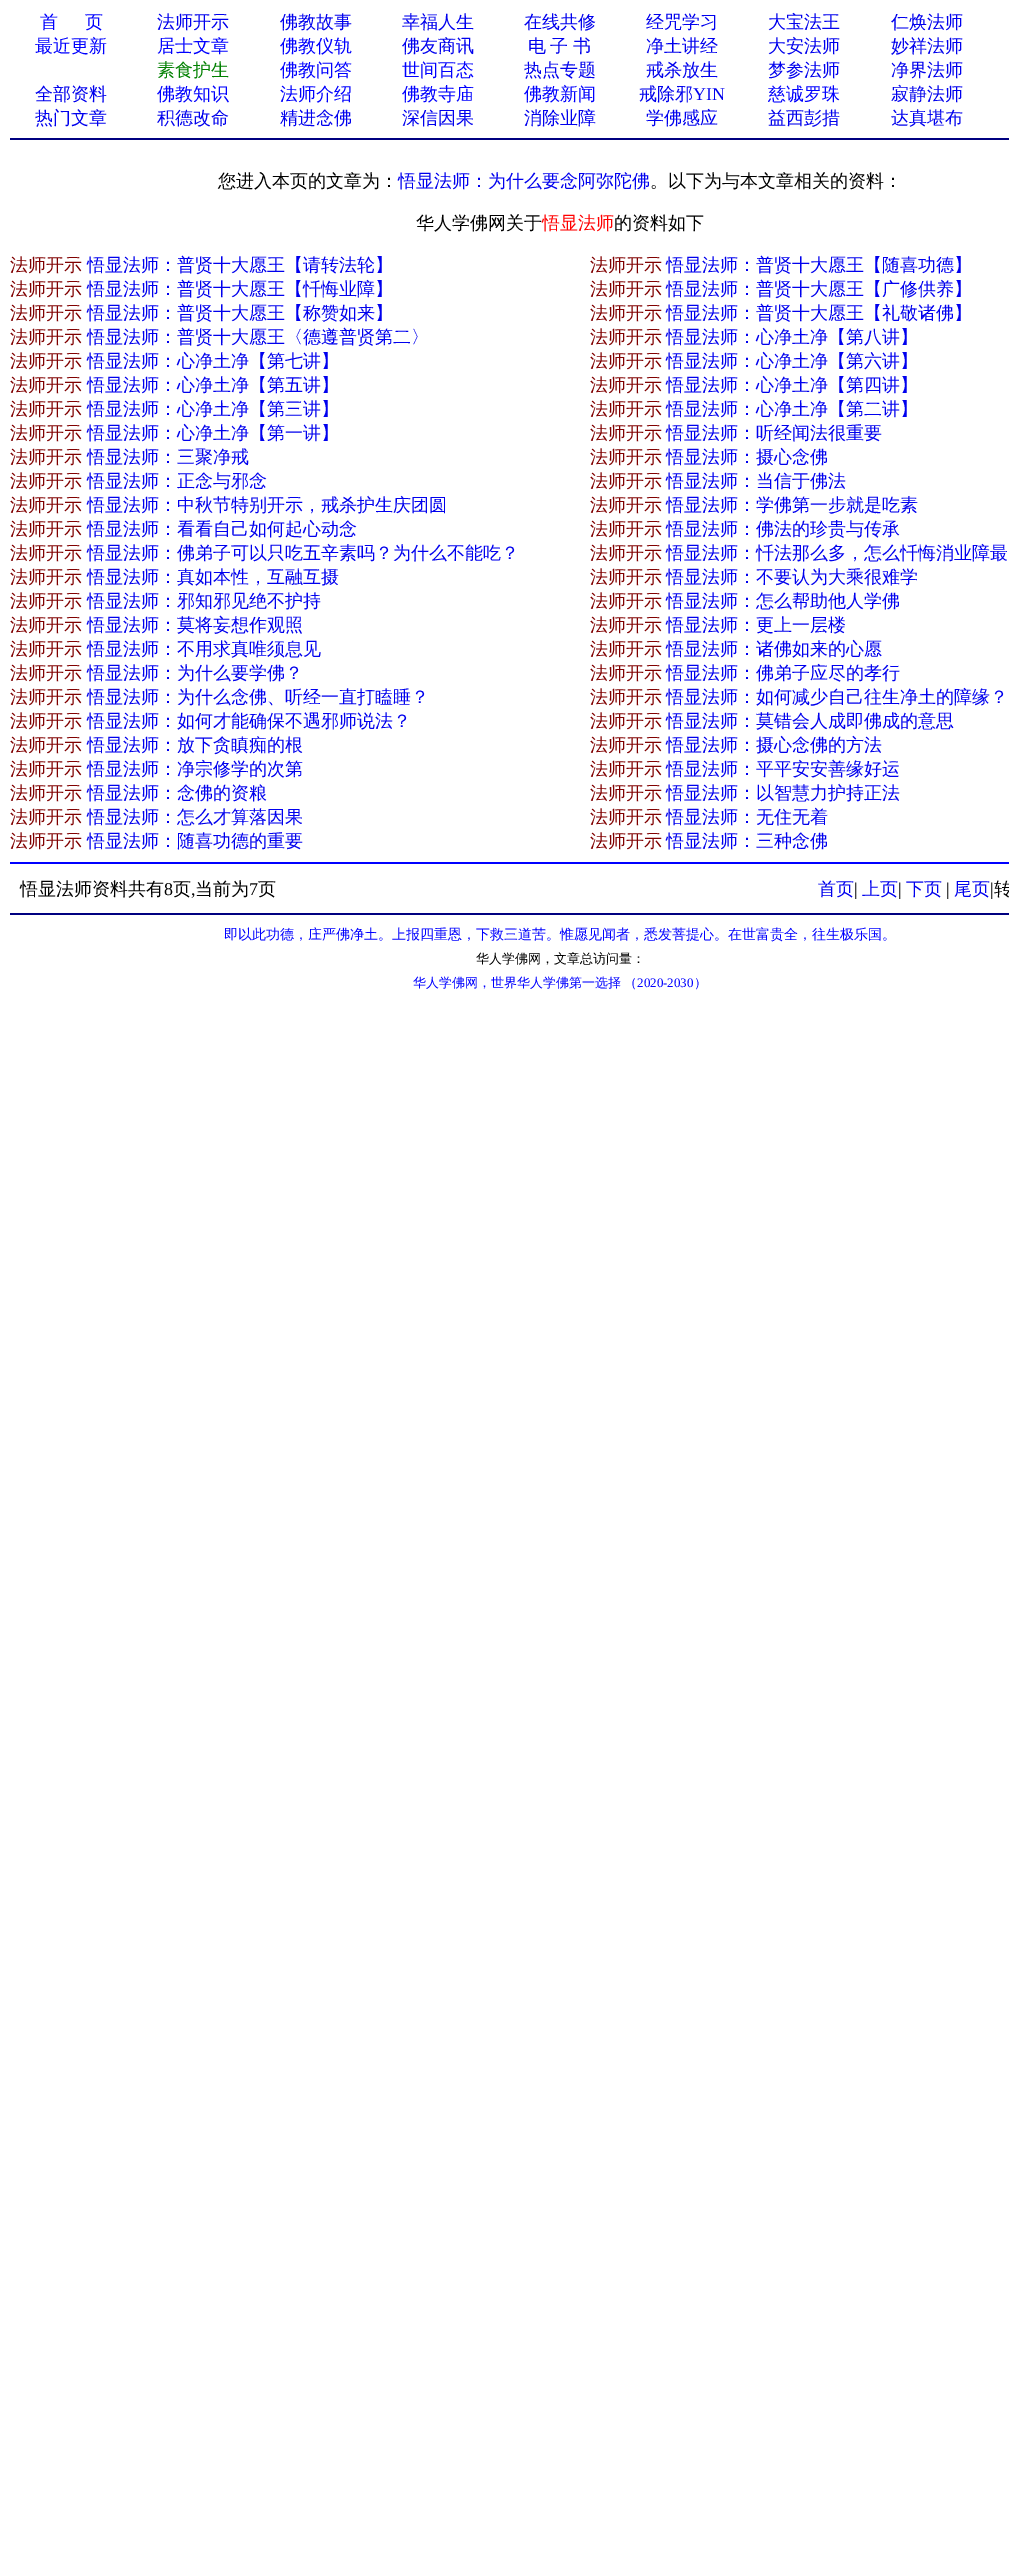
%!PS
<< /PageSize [1009 2562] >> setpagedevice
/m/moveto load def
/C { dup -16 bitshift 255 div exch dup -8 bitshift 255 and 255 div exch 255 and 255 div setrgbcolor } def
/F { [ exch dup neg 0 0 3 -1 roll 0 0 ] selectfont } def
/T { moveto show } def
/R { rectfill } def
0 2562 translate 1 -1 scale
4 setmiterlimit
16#FFFFFF C
0 0 1009 2562 R
/WenQuanYiZenHei-Medium 18 F
16#0000FF C
(首) 40 28 T
(页) 85 28 T
16#0000EE C
(法师开示) 157 28 T
(佛教故事) 280 28 T
(幸福人生) 402 28 T
(在线共修) 524 28 T
(经咒学习) 646 28 T
(大宝法王) 768 28 T
(仁焕法师) 891 28 T
16#0000FF C
(最近更新) 35 52 T
(居士文章) 157 52 T
(佛教仪轨) 280 52 T
16#0000EE C
(佛友商讯) 402 52 T
528 52 m -1 0 32 (电 子 书) widthshow
(净土讲经) 646 52 T
(大安法师) 768 52 T
(妙祥法师) 891 52 T
16#008000 C
(素食护生) 157 76 T
16#0000FF C
(佛教问答) 280 76 T
(世间百态) 402 76 T
16#0000EE C
(热点专题) 524 76 T
(戒杀放生) 646 76 T
(梦参法师) 768 76 T
(净界法师) 891 76 T
(全部资料) 35 100 T
16#0000FF C
(佛教知识) 157 100 T
(法师介绍) 280 100 T
(佛教寺庙) 402 100 T
(佛教新闻) 524 100 T
16#0000EE C
(戒除邪) 639 100 T
/LiberationSerif-Regular 18 F
(YIN) 693 100 T
/WenQuanYiZenHei-Medium 18 F
16#0000FF C
(慈诚罗珠) 768 100 T
16#0000EE C
(寂静法师) 891 100 T
(热门文章) 35 124 T
(积德改命) 157 124 T
(精进念佛) 280 124 T
(深信因果) 402 124 T
(消除业障) 524 124 T
(学佛感应) 646 124 T
(益西彭措) 768 124 T
(达真堪布) 891 124 T
16#000080 C
10 138 999 2 R
16#000000 C
(您进入本页的文章为：) 218 187 T
16#0000EE C
(悟显法师：为什么要念阿弥陀佛) 398 187 T
16#000000 C
(。以下为与本文章相关的资料：) 650 187 T
(华人学佛网关于) 416 229 T
16#FF0000 C
(悟显法师) 542 229 T
16#000000 C
(的资料如下) 614 229 T
16#800000 C
(法师开示) 10 271 T
16#0000EE C
(悟显法师：普贤十大愿王【请转法轮】) 87 271 T
16#800000 C
(法师开示) 590 271 T
16#0000EE C
(悟显法师：普贤十大愿王【随喜功德】) 666 271 T
16#800000 C
(法师开示) 10 295 T
16#0000EE C
(悟显法师：普贤十大愿王【忏悔业障】) 87 295 T
16#800000 C
(法师开示) 590 295 T
16#0000EE C
(悟显法师：普贤十大愿王【广修供养】) 666 295 T
16#800000 C
(法师开示) 10 319 T
16#0000EE C
(悟显法师：普贤十大愿王【称赞如来】) 87 319 T
16#800000 C
(法师开示) 590 319 T
16#0000EE C
(悟显法师：普贤十大愿王【礼敬诸佛】) 666 319 T
16#800000 C
(法师开示) 10 343 T
16#0000EE C
(悟显法师：普贤十大愿王〈德遵普贤第二〉) 87 343 T
16#800000 C
(法师开示) 590 343 T
16#0000EE C
(悟显法师：心净土净【第八讲】) 666 343 T
16#800000 C
(法师开示) 10 367 T
16#0000EE C
(悟显法师：心净土净【第七讲】) 87 367 T
16#800000 C
(法师开示) 590 367 T
16#0000EE C
(悟显法师：心净土净【第六讲】) 666 367 T
16#800000 C
(法师开示) 10 391 T
16#0000EE C
(悟显法师：心净土净【第五讲】) 87 391 T
16#800000 C
(法师开示) 590 391 T
16#0000EE C
(悟显法师：心净土净【第四讲】) 666 391 T
16#800000 C
(法师开示) 10 415 T
16#0000EE C
(悟显法师：心净土净【第三讲】) 87 415 T
16#800000 C
(法师开示) 590 415 T
16#0000EE C
(悟显法师：心净土净【第二讲】) 666 415 T
16#800000 C
(法师开示) 10 439 T
16#0000EE C
(悟显法师：心净土净【第一讲】) 87 439 T
16#800000 C
(法师开示) 590 439 T
16#0000EE C
(悟显法师：听经闻法很重要) 666 439 T
16#800000 C
(法师开示) 10 463 T
16#0000EE C
(悟显法师：三聚净戒) 87 463 T
16#800000 C
(法师开示) 590 463 T
16#0000EE C
(悟显法师：摄心念佛) 666 463 T
16#800000 C
(法师开示) 10 487 T
16#0000EE C
(悟显法师：正念与邪念) 87 487 T
16#800000 C
(法师开示) 590 487 T
16#0000EE C
(悟显法师：当信于佛法) 666 487 T
16#800000 C
(法师开示) 10 511 T
16#0000EE C
(悟显法师：中秋节特别开示，戒杀护生庆团圆) 87 511 T
16#800000 C
(法师开示) 590 511 T
16#0000EE C
(悟显法师：学佛第一步就是吃素) 666 511 T
16#800000 C
(法师开示) 10 535 T
16#0000EE C
(悟显法师：看看自己如何起心动念) 87 535 T
16#800000 C
(法师开示) 590 535 T
16#0000EE C
(悟显法师：佛法的珍贵与传承) 666 535 T
16#800000 C
(法师开示) 10 559 T
16#0000EE C
(悟显法师：佛弟子可以只吃五辛素吗？为什么不能吃？) 87 559 T
16#800000 C
(法师开示) 590 559 T
16#0000EE C
(悟显法师：忏法那么多，怎么忏悔消业障最) 666 559 T
16#800000 C
(法师开示) 10 583 T
16#0000EE C
(悟显法师：真如本性，互融互摄) 87 583 T
16#800000 C
(法师开示) 590 583 T
16#0000EE C
(悟显法师：不要认为大乘很难学) 666 583 T
16#800000 C
(法师开示) 10 607 T
16#0000EE C
(悟显法师：邪知邪见绝不护持) 87 607 T
16#800000 C
(法师开示) 590 607 T
16#0000EE C
(悟显法师：怎么帮助他人学佛) 666 607 T
16#800000 C
(法师开示) 10 631 T
16#0000EE C
(悟显法师：莫将妄想作观照) 87 631 T
16#800000 C
(法师开示) 590 631 T
16#0000EE C
(悟显法师：更上一层楼) 666 631 T
16#800000 C
(法师开示) 10 655 T
16#0000EE C
(悟显法师：不用求真唯须息见) 87 655 T
16#800000 C
(法师开示) 590 655 T
16#0000EE C
(悟显法师：诸佛如来的心愿) 666 655 T
16#800000 C
(法师开示) 10 679 T
16#0000EE C
(悟显法师：为什么要学佛？) 87 679 T
16#800000 C
(法师开示) 590 679 T
16#0000EE C
(悟显法师：佛弟子应尽的孝行) 666 679 T
16#800000 C
(法师开示) 10 703 T
16#0000EE C
(悟显法师：为什么念佛、听经一直打瞌睡？) 87 703 T
16#800000 C
(法师开示) 590 703 T
16#0000EE C
(悟显法师：如何减少自己往生净土的障缘？) 666 703 T
16#800000 C
(法师开示) 10 727 T
16#0000EE C
(悟显法师：如何才能确保不遇邪师说法？) 87 727 T
16#800000 C
(法师开示) 590 727 T
16#0000EE C
(悟显法师：莫错会人成即佛成的意思) 666 727 T
16#800000 C
(法师开示) 10 751 T
16#0000EE C
(悟显法师：放下贪瞋痴的根) 87 751 T
16#800000 C
(法师开示) 590 751 T
16#0000EE C
(悟显法师：摄心念佛的方法) 666 751 T
16#800000 C
(法师开示) 10 775 T
16#0000EE C
(悟显法师：净宗修学的次第) 87 775 T
16#800000 C
(法师开示) 590 775 T
16#0000EE C
(悟显法师：平平安安善缘好运) 666 775 T
16#800000 C
(法师开示) 10 799 T
16#0000EE C
(悟显法师：念佛的资粮) 87 799 T
16#800000 C
(法师开示) 590 799 T
16#0000EE C
(悟显法师：以智慧力护持正法) 666 799 T
16#800000 C
(法师开示) 10 823 T
16#0000EE C
(悟显法师：怎么才算落因果) 87 823 T
16#800000 C
(法师开示) 590 823 T
16#0000EE C
(悟显法师：无住无着) 666 823 T
16#800000 C
(法师开示) 10 847 T
16#0000EE C
(悟显法师：随喜功德的重要) 87 847 T
16#800000 C
(法师开示) 590 847 T
16#0000EE C
(悟显法师：三种念佛) 666 847 T
16#0000FF C
10 862 999 2 R
16#000000 C
(悟显法师资料共有) 20 895 T
/LiberationSerif-Regular 18 F
(8) 164 895 T
/WenQuanYiZenHei-Medium 18 F
(页) 173 895 T
(当前为) 195 895 T
/LiberationSerif-Regular 18 F
(7) 249 895 T
/WenQuanYiZenHei-Medium 18 F
(页) 258 895 T
/LiberationSerif-Regular 18 F
(,) 191 895 T
/WenQuanYiZenHei-Medium 18 F
16#0000EE C
(首页) 818 895 T
/LiberationSerif-Regular 18 F
16#000000 C
(|) 854 895 T
/WenQuanYiZenHei-Medium 18 F
16#0000EE C
(上页) 862 895 T
/LiberationSerif-Regular 18 F
16#000000 C
(|) 898 895 T
/WenQuanYiZenHei-Medium 18 F
16#0000EE C
(下页) 906 895 T
/LiberationSerif-Regular 18 F
16#000000 C
(|) 946 895 T
/WenQuanYiZenHei-Medium 18 F
16#0000EE C
(尾页) 954 895 T
/LiberationSerif-Regular 18 F
16#000000 C
(|) 990 895 T
/WenQuanYiZenHei-Medium 18 F
(转) 994 895 T
16#000080 C
10 913 999 2 R
/WenQuanYiZenHei-Medium 14 F
16#0000FF C
(即以此功德，庄严佛净土。上报四重恩，下救三道苦。惟愿见闻者，悉发菩提心。在世富贵全，往生极乐国。) 224 939 T
/WenQuanYiZenHei-Medium 13 F
16#000000 C
(华人学佛网，文章总访问量：) 476 963 T
16#0000FF C
413 987 m -1 0 32 (华人学佛网，世界华人学佛第一选择 （) widthshow
/LiberationSerif-Regular 13 F
(2020-2030) 637 987 T
/WenQuanYiZenHei-Medium 13 F
(）) 694 987 T
showpage
